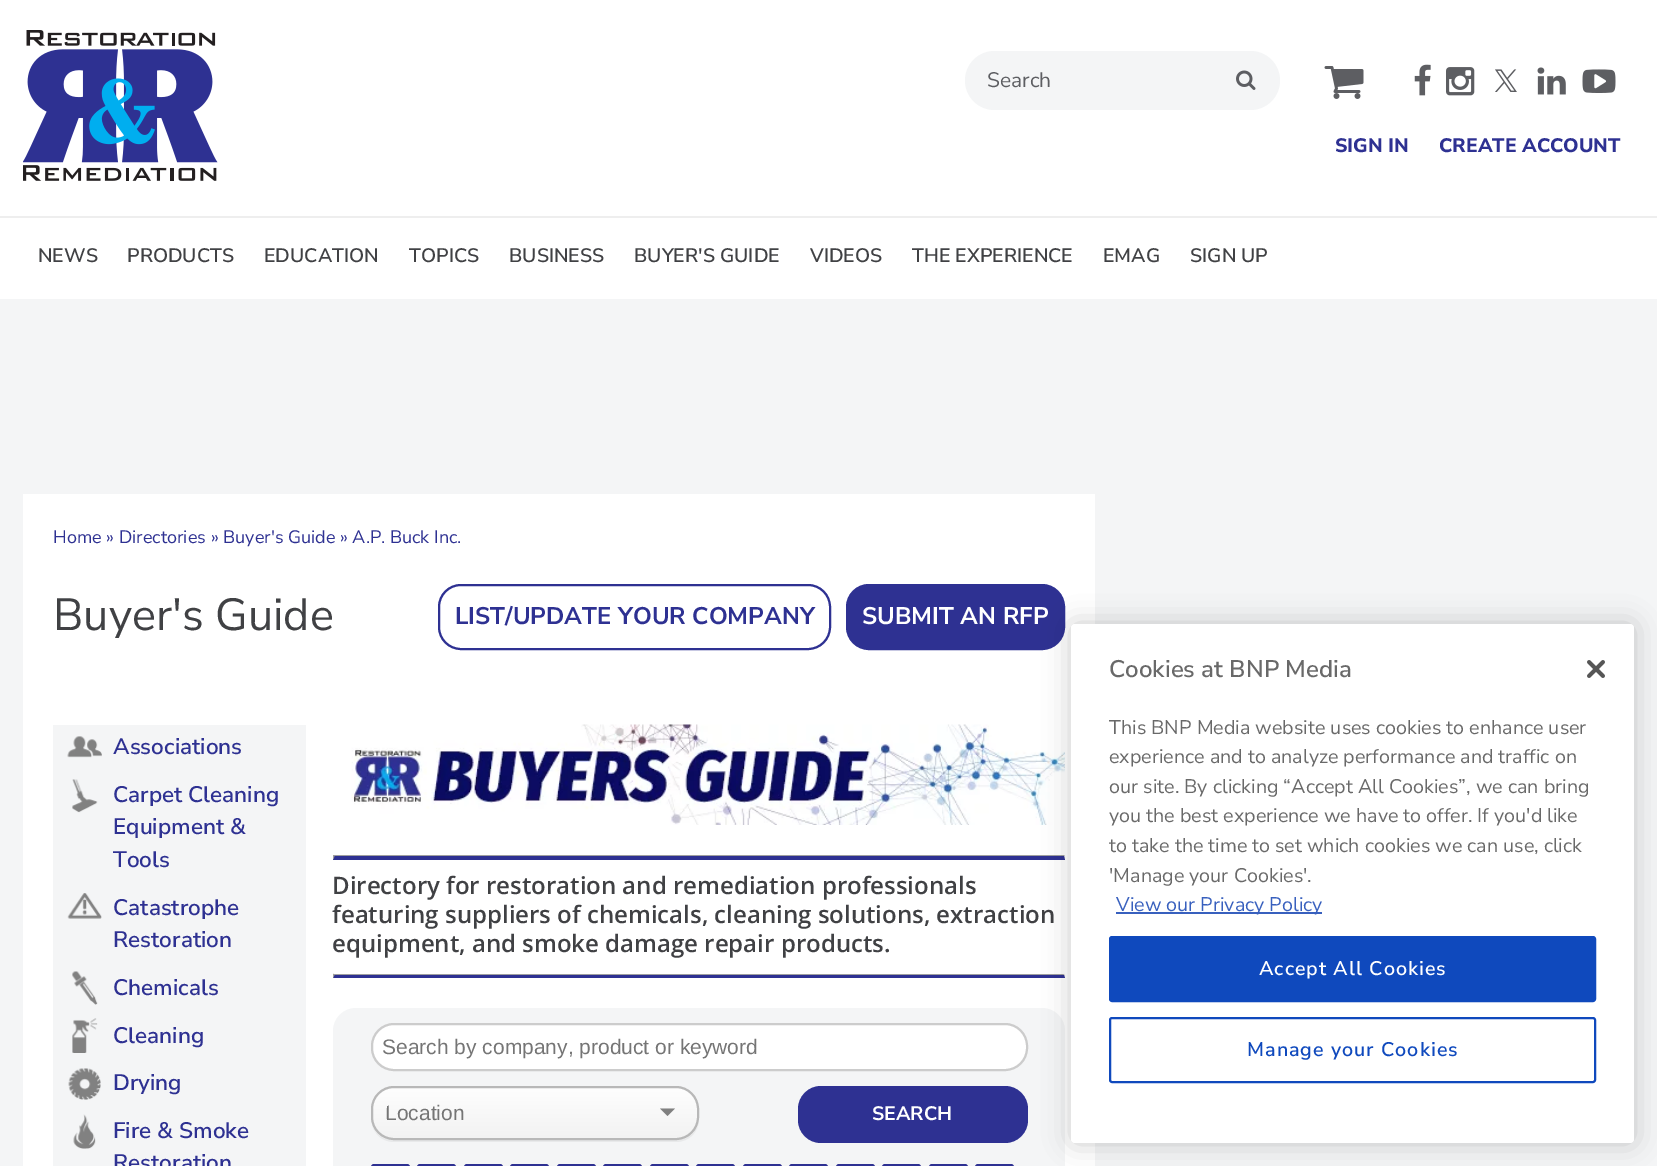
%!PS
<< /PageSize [1657 1166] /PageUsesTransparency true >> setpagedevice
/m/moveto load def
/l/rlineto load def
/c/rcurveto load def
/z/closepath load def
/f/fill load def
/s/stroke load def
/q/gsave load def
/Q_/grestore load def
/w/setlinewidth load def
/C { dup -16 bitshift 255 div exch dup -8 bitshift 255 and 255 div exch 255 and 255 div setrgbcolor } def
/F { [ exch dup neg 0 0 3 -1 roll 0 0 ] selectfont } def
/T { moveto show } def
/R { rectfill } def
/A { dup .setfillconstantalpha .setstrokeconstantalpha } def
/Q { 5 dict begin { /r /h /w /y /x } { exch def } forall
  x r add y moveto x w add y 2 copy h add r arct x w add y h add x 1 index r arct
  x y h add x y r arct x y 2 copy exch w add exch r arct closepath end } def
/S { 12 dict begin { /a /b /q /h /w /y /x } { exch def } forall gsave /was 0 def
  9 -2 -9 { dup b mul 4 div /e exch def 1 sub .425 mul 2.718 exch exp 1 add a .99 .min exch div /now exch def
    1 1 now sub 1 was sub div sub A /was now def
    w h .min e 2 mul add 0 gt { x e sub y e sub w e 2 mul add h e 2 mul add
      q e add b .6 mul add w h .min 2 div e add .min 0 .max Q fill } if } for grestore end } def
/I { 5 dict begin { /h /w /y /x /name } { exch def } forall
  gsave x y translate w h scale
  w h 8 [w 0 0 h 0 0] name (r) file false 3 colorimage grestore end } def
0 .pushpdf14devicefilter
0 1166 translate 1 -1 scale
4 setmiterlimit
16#F4F5F6 C
0 0 1657 1166 R
16#FFFFFF C
0 0 1657 299 R
(1.rgb) 23 30 195 151 I
16#F4F5F6 C
965 51 315 59 29.5 Q f
/NunitoSans-Regular 21 F
16#5D5E62 C
(Search) 987 87 T
(2.rgb) 1236 70 20 20 I
(3.rgb) 1324 66 40 33 I
(4.rgb) 1414 64 17 32 I
(5.rgb) 1446 67 29 29 I
(6.rgb) 1495 69 22 23 I
(7.rgb) 1537 67 29 28 I
(8.rgb) 1582 69 34 24 I
/NunitoSans-ExtraBold 19.5 F
16#2E3192 C
(SIGN IN) 1335 152 T
(CREATE ACCOUNT) 1439 152 T
16#EEEEEE C
0 216 1657 2 R
/NunitoSans-SemiBold 19.5 F
16#404144 C
(NEWS) 38 262 T
(PRODUCTS) 127 262 T
(EDUCATION) 264 262 T
(TOPICS) 409 262 T
(BUSINESS) 509 262 T
(BUYER'S GUIDE) 634 262 T
(VIDEOS) 810 262 T
(THE EXPERIENCE) 912 262 T
(EMAG) 1103 262 T
(SIGN UP) 1190 262 T
16#FFFFFF C
23 494 1072 672 R
/NunitoSans-Regular 18 F
16#2E3192 C
(Home » Directories » Buyer's Guide » A.P. Buck Inc.) 53 543 T
/NunitoSans-Regular 45 F
16#404144 C
(Buyer's Guide) 53 630 T
16#2E3192 C
2 w
439 585 391 64 22 Q s
/NunitoSans-Bold 24 F
(LIST/UPDATE YOUR COMPANY) 455 624 T
847 585 217 64 22 Q q f Q_
s
16#FFFFFF C
(SUBMIT AN RFP) 862 624 T
16#F4F5F6 C
53 725 253 441 R
(9.rgb) 67 736 35 22 I
/NunitoSans-SemiBold 22.5 F
16#2E3192 C
(Associations) 113 754 T
(10.rgb) 72 779 26 34 I
(Carpet Cleaning) 113 802 T
(Equipment &) 113 834 T
(Tools) 113 867 T
(11.rgb) 67 893 35 26 I
(Catastrophe) 113 915 T
(Restoration) 113 947 T
(12.rgb) 72 971 26 34 I
(Chemicals) 113 995 T
(13.rgb) 72 1018 26 35 I
(Cleaning) 113 1043 T
(14.rgb) 68 1068 33 32 I
(Drying) 113 1090 T
(15.rgb) 73 1114 23 35 I
(Fire & Smoke) 113 1138 T
(Restoration) 113 1170 T
(16.rgb) 351 724 714 101 I
16#9F9F9F C
333 855 732 1 R
16#EEEEEE C
1065 855 m 0 4.5 l -1.5 -3 l z f
16#2E3192 C
1065 860 m -732 0 l 1 -4 l 730 0 l z f
16#9F9F9F C
333 859.5 m 0 -4.5 l 1.5 1.5 l z f
/OpenSans-SemiBold 24 F
16#404144 C
(Directory for restoration and remediation professionals) 332 894 T
(featuring suppliers of chemicals, cleaning solutions, extraction) 332 923 T
(equipment, and smoke damage repair products.) 332 952 T
16#9F9F9F C
333 974 732 1 R
16#EEEEEE C
1065 973.5 m 0 4.5 l -1.5 -3 l z f
16#2E3192 C
1065 978 m -732 0 l 1 -3 l 730 0 l z f
16#9F9F9F C
333 978 m 0 -4.5 l 1.5 1.5 l z f
16#F4F5F6 C
333 1008 732 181 23 Q f
16#FFFFFF C
372 1024 655 46 22 Q q f Q_
16#CCCCCC C
s
/LiberationSans-Regular 21 F
16#757575 C
(Search by company, product or keyword) 382 1054 T
16#E8E9EA C
372 1125 m 3 10 11 17 22 17 c 282 0 l 13 0 23 -10 23 -23 c 0 -1 l 0 12 -10 22 -23 22 c -283 0 l -10 0 -18 -6 -21 -15 c z f
q
371 1086 328 54 23 Q clip newpath
q 371 1088 m 328 0 l 0 51 l -328 0 l z clip newpath
<< /ShadingType 2 /ColorSpace /DeviceRGB /Coords [535 1088 535 1139] /Extend [true true] /Function << /FunctionType 2 /Domain [0 1] /C0 [.996 .996 .996] /C1 [.949 .949 .949] /N 1 >> >> shfill Q_
Q_
16#B8B8B8 C
372 1087 326 52 22 Q s
q
386 1100 301 27 13.5 Q clip newpath
16#757575 C
(Location) 385 1120 T
Q_
16#808080 C
660 1108.5 m 15 0 l -7.5 7.5 l z f
16#2E3192 C
798 1086 230 57 23 Q f
/NunitoSans-Bold 19.5 F
16#FFFFFF C
(SEARCH) 872 1120 T
16#2E3192 C
372 1165 37 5 2 Q s
418 1165 37 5 2 Q s
465 1165 37 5 2 Q s
511 1165 37 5 2 Q s
558 1165 37 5 2 Q s
604 1165 37 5 2 Q s
651 1165 37 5 2 Q s
697 1165 37 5 2 Q s
744 1165 37 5 2 Q s
790 1165 37 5 2 Q s
837 1165 37 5 2 Q s
883 1165 37 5 2 Q s
930 1165 37 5 2 Q s
976 1165 37 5 2 Q s
16#000000 C
1071 624 563 519 4 13.5 .2 S
16#FFFFFF C
1071 624 563 519 4 Q f
/NunitoSans-SemiBold 24 F
16#696969 C
(Cookies at BNP Media) 1109 677 T
/NunitoSans-Regular 19.7 F
(This BNP Media website uses cookies to enhance user) 1109 734 T
(experience and to analyze performance and traffic on) 1109 763 T
(our site. By clicking “Accept All Cookies”, we can bring) 1109 793 T
(you the best experience we have to offer. If you'd like) 1109 822 T
(to take the time to set which cookies we can use, click) 1109 852 T
('Manage your Cookies'.) 1109 882 T
16#3860BE C
1116 912 206 2 R
(View our Privacy Policy) 1116 911 T
(17.rgb) 1587 660 18 18 I
16#0F49BD C
1110 937 485 64 2 Q q f Q_
s
/NunitoSans-SemiBold 19.7 F
16#FFFFFF C
1259 975 m 1 0 (Accept All Cookies) ashow
16#0F49BD C
1110 1018 485 64 2 Q s
1247 1056 m 1 0 (Manage your Cookies) ashow
.poppdf14devicefilter showpage
